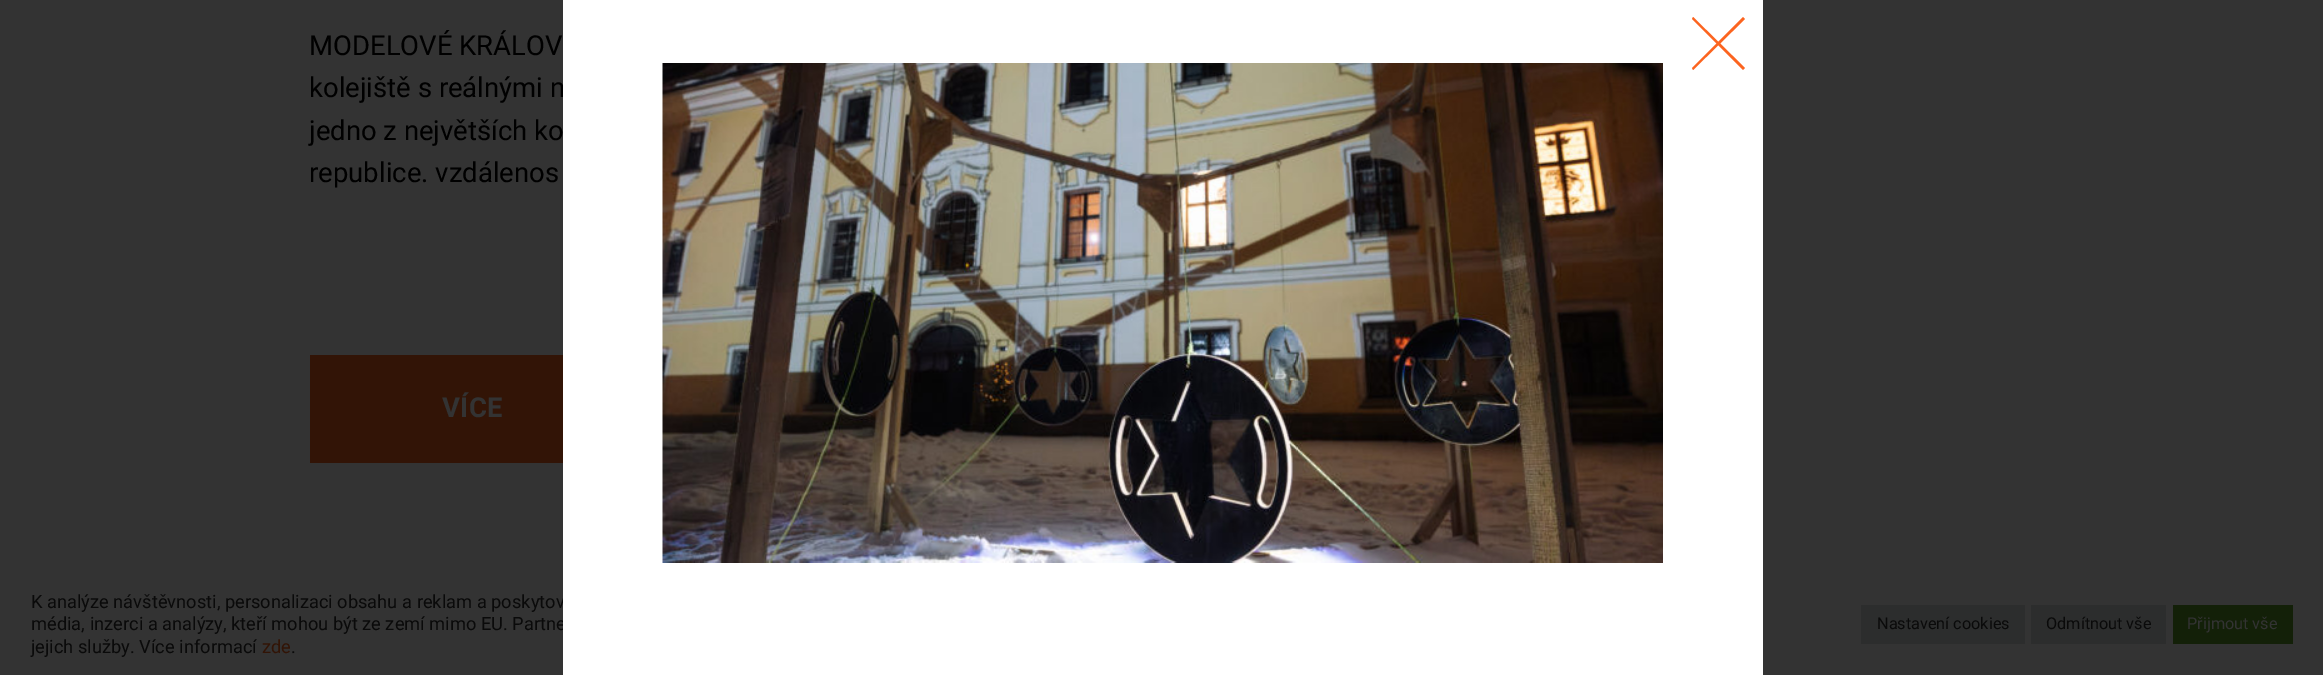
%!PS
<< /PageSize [2323 675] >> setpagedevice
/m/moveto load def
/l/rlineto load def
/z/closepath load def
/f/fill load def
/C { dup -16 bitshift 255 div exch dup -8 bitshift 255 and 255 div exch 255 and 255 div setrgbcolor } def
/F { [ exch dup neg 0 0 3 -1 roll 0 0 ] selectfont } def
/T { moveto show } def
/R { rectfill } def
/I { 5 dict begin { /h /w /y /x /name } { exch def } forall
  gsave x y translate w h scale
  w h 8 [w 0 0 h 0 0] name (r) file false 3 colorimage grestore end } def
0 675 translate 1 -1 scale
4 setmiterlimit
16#333333 C
0 0 2323 675 R
/Roboto-Regular 27.5 F
16#000000 C
(MODELOVÉ KRÁLOV) 309 55 T
(kolejiště s reálnými n) 309 97 T
(jedno z největších ko) 309 140 T
(republice. vzdálenos) 309 182 T
16#321406 C
310 355 253 108 R
/Roboto-Bold 27.5 F
16#333333 C
442 417 m .5 0 (VÍCE) ashow
/Roboto-Regular 18.3 F
16#0A0A0A C
(K analýze návštěvnosti, personalizaci obsahu a reklam a poskytov) 31 608 T
(média, inzerci a analýzy, kteří mohou být ze zemí mimo EU. Partne) 31 630 T
16#FFFFFF C
563 0 1200 675 R
16#FC641F C
1743 17 m 2 2 l -52 51 l -1 -2 l z f
1692 19 m 1 -2 l 52 51 l -2 2 l z f
(1.rgb) 662 63 1001 500 I
16#0A0A0A C
(jejich služby. Více informací) 31 653 T
16#321406 C
(zde) 262 653 T
16#0A0A0A C
(.) 291 653 T
16#2C2D2D C
1861 605 164 39 R
/Roboto-Regular 16.25 F
16#0A0A0A C
(Nastavení cookies) 1877 629 T
16#2C2D2D C
2031 605 135 39 R
16#0A0A0A C
(Odmítnout vše) 2046 629 T
16#132008 C
2173 605 120 39 R
16#333333 C
(Přijmout vše) 2187 629 T
showpage
